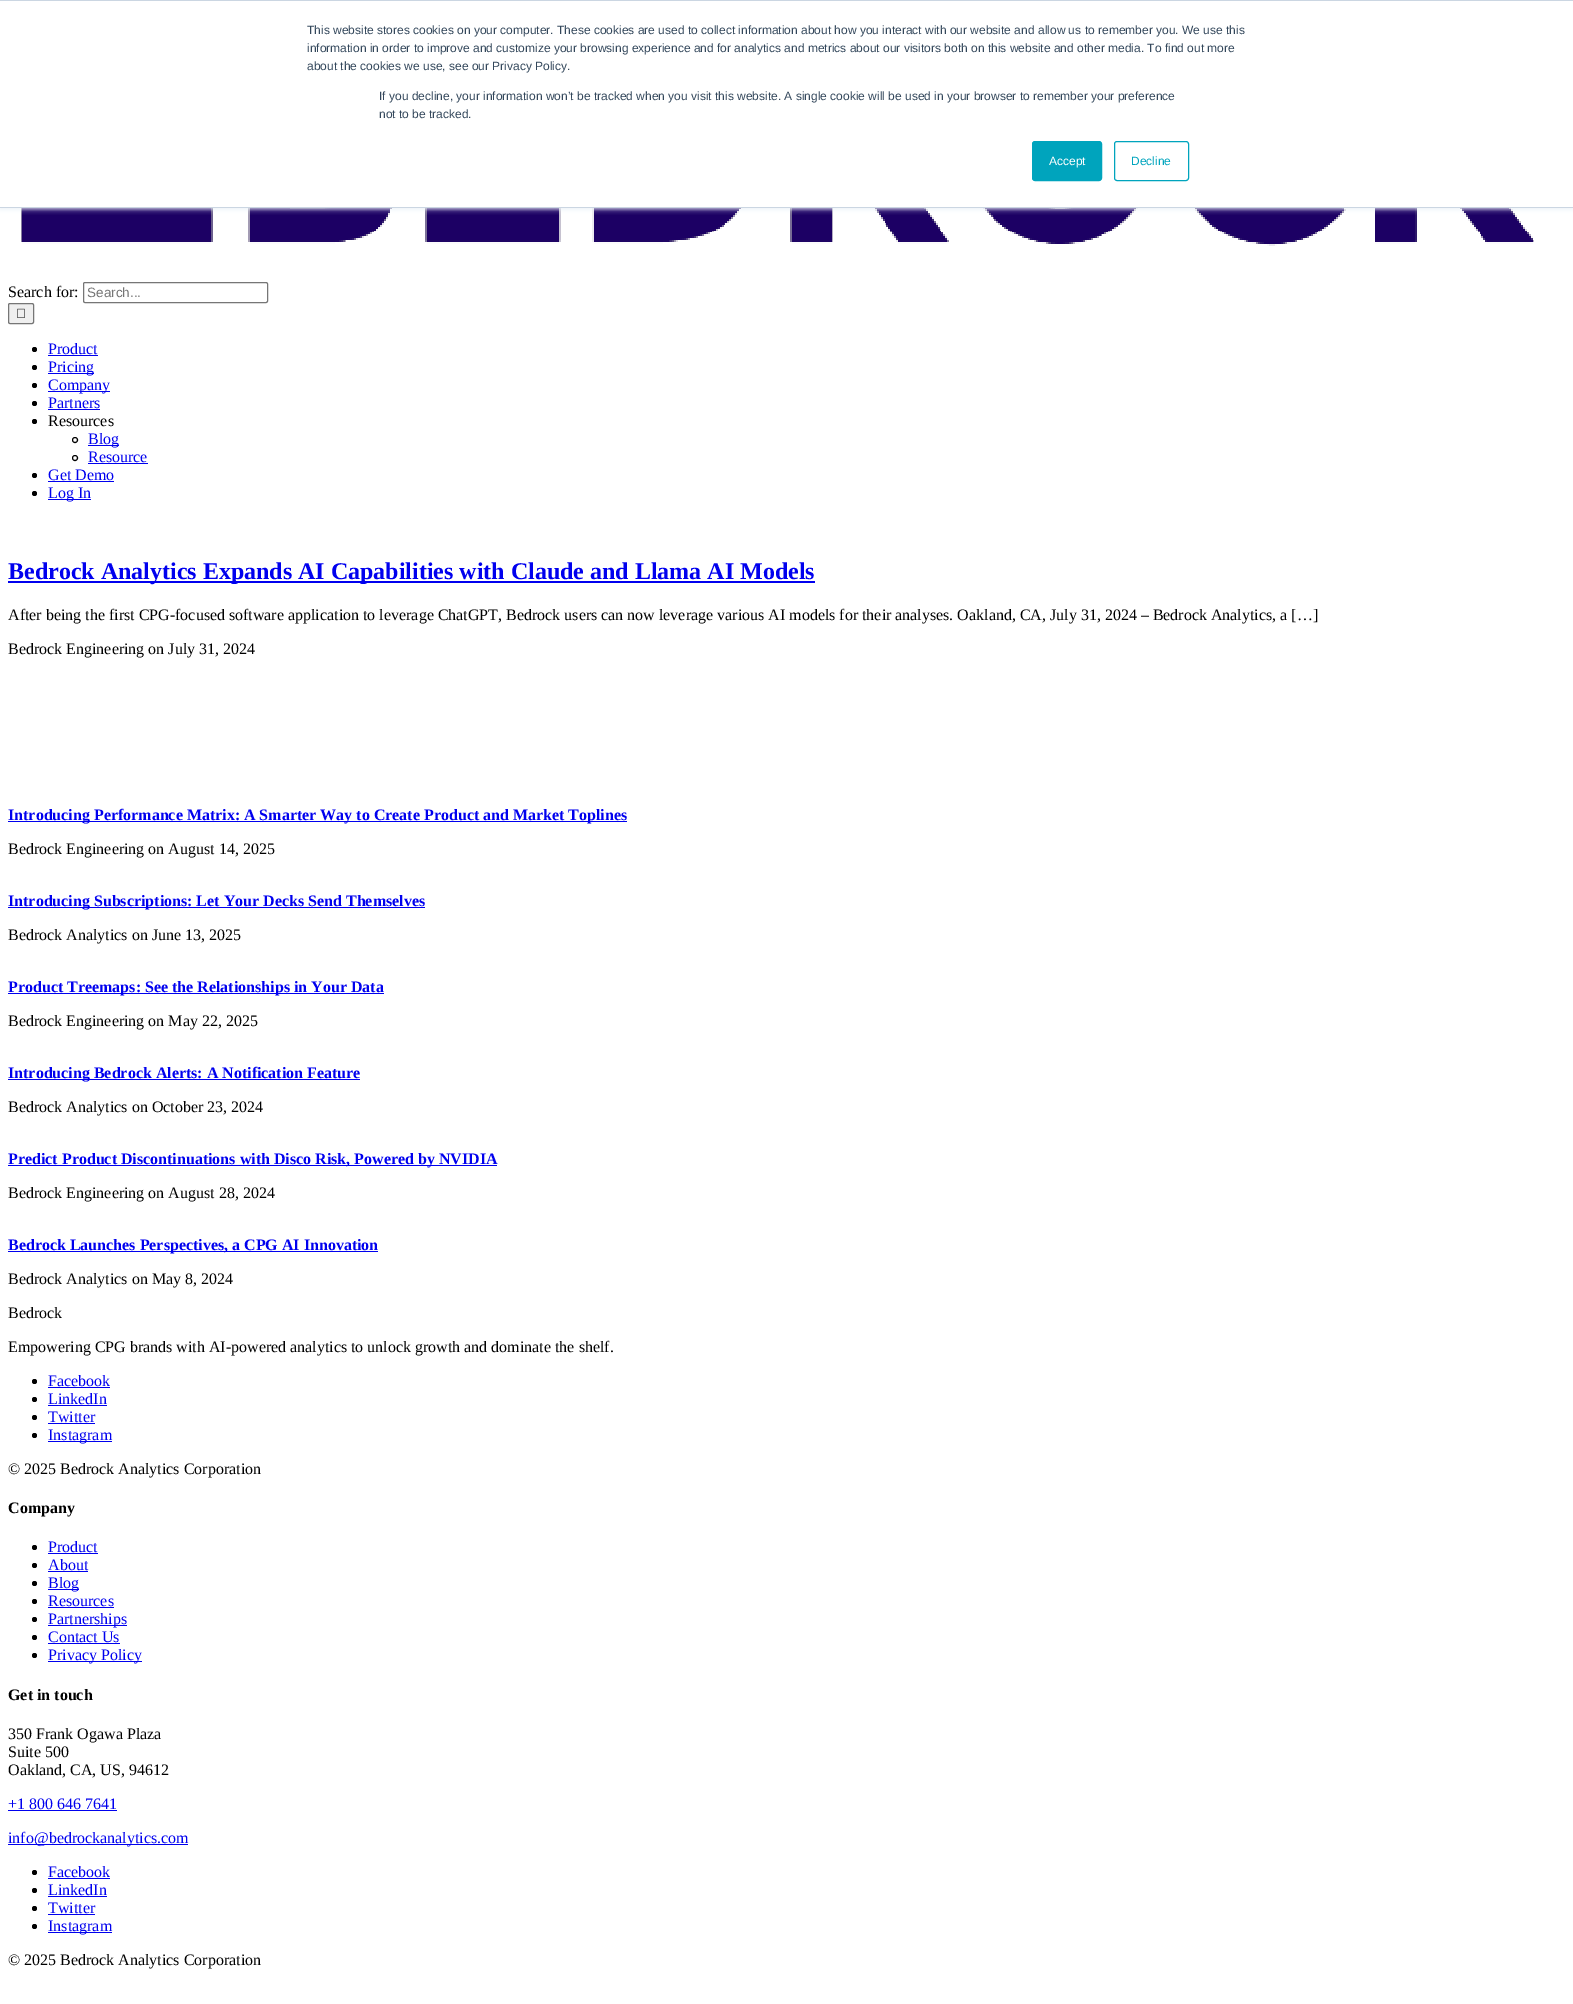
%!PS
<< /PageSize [1573 2004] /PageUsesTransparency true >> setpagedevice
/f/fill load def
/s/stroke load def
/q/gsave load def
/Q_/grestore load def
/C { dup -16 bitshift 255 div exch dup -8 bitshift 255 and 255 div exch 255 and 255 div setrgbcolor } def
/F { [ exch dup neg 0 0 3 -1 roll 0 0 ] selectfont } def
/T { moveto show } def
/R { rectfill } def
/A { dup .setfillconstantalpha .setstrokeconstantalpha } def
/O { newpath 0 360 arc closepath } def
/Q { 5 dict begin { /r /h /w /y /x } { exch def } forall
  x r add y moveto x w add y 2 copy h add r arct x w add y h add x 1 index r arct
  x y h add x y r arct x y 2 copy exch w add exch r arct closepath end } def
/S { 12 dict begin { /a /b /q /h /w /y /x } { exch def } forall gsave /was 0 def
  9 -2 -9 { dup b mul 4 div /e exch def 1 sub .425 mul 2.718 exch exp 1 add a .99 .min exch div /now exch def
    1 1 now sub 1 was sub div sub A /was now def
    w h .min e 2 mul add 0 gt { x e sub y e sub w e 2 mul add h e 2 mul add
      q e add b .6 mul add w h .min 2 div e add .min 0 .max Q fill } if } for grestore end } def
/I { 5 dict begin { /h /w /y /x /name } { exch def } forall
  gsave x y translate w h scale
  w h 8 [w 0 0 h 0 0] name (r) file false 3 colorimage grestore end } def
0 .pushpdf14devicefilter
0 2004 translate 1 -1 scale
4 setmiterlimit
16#FFFFFF C
0 0 1573 2004 R
(1.rgb) 21 208 1513 38 I
16#EAF0F6 C
0 1 1573 208 0 2.5 1 S
16#FFFFFF C
0 1 1573 206 R
16#CBD6E2 C
0 0 1573 1 R
0 207 1573 1 R
/LiberationSans-Regular 12 F
16#33475B C
(This website stores cookies on your computer. These cookies are used to collect information about how you interact with our website and allow us to remember you. We use this) 307 34 T
(information in order to improve and customize your browsing experience and for analytics and metrics about our visitors both on this website and other media. To find out more) 307 52 T
(about the cookies we use, see our Privacy Policy.) 307 70 T
(If you decline, your information won’t be tracked when you visit this website. A single cookie will be used in your browser to remember your preference) 379 100 T
(not to be tracked.) 379 118 T
16#00A4BD C
1032.5 141.5 69 39 2.5 Q q f Q_
s
16#FFFFFF C
(Accept) 1049 165 T
16#00A4BD C
1114.5 141.5 74 39 2.5 Q s
(Decline) 1131 165 T
/LiberationSerif-Regular 16 F
16#000000 C
(Search for:) 8 297 T
16#767676 C
83.5 282.5 184 20 1.5 Q s
/LiberationSans-Regular 13.5 F
16#757575 C
(Search...) 87 297 T
16#EFEFEF C
8.5 303.5 25 20 1.5 Q q f Q_
16#767676 C
s
(2.rgb) 17 308 8 10 I
16#000000 C
34.5 349.5 2.5 O f
/LiberationSerif-Regular 16 F
16#0000EE C
(Product) 48 354 T
48 355 50 1 R
16#000000 C
34.5 367.5 2.5 O f
16#0000EE C
48 373 46 1 R
(Pricing) 48 372 T
16#000000 C
34.5 385.5 2.5 O f
16#0000EE C
48 391 62 1 R
(Company) 48 390 T
16#000000 C
34.5 403.5 2.5 O f
16#0000EE C
(Partners) 48 408 T
48 409 52 1 R
16#000000 C
34.5 421.5 2.5 O f
(Resources) 48 426 T
75 440 2.5 O s
16#0000EE C
88 445 31 1 R
(Blog) 88 444 T
16#000000 C
75 458 2.5 O s
16#0000EE C
(Resource) 88 462 T
88 463 60 1 R
16#000000 C
34.5 475.5 2.5 O f
16#0000EE C
(Get Demo) 48 480 T
48 481 66 1 R
16#000000 C
34.5 493.5 2.5 O f
16#0000EE C
48 499 43 1 R
(Log In) 48 498 T
8 581 807 2 R
/LiberationSerif-Bold 24 F
(Bedrock Analytics Expands AI Capabilities with Claude and Llama AI Models) 8 579 T
/LiberationSerif-Regular 16 F
16#000000 C
(After being the first CPG-focused software application to leverage ChatGPT, Bedrock users can now leverage various AI models for their analyses. Oakland, CA, July 31, 2024 – Bedrock Analytics, a […]) 8 620 T
(Bedrock Engineering on July 31, 2024) 8 654 T
16#0000EE C
8 821 619 1 R
/LiberationSerif-Bold 16 F
(Introducing Performance Matrix: A Smarter Way to Create Product and Market Toplines) 8 820 T
/LiberationSerif-Regular 16 F
16#000000 C
(Bedrock Engineering on August 14, 2025) 8 854 T
16#0000EE C
8 907 417 1 R
/LiberationSerif-Bold 16 F
(Introducing Subscriptions: Let Your Decks Send Themselves) 8 906 T
/LiberationSerif-Regular 16 F
16#000000 C
(Bedrock Analytics on June 13, 2025) 8 940 T
16#0000EE C
8 993 376 1 R
/LiberationSerif-Bold 16 F
(Product Treemaps: See the Relationships in Your Data) 8 992 T
/LiberationSerif-Regular 16 F
16#000000 C
(Bedrock Engineering on May 22, 2025) 8 1026 T
16#0000EE C
8 1079 352 1 R
/LiberationSerif-Bold 16 F
(Introducing Bedrock Alerts: A Notification Feature) 8 1078 T
/LiberationSerif-Regular 16 F
16#000000 C
(Bedrock Analytics on October 23, 2024) 8 1112 T
16#0000EE C
8 1165 489 1 R
/LiberationSerif-Bold 16 F
(Predict Product Discontinuations with Disco Risk, Powered by NVIDIA) 8 1164 T
/LiberationSerif-Regular 16 F
16#000000 C
(Bedrock Engineering on August 28, 2024) 8 1198 T
16#0000EE C
8 1251 370 1 R
/LiberationSerif-Bold 16 F
(Bedrock Launches Perspectives, a CPG AI Innovation) 8 1250 T
/LiberationSerif-Regular 16 F
16#000000 C
(Bedrock Analytics on May 8, 2024) 8 1284 T
(Bedrock) 8 1318 T
(Empowering CPG brands with AI-powered analytics to unlock growth and dominate the shelf.) 8 1352 T
34.5 1381.5 2.5 O f
16#0000EE C
(Facebook) 48 1386 T
48 1387 62 1 R
16#000000 C
34.5 1399.5 2.5 O f
16#0000EE C
(LinkedIn) 48 1404 T
48 1405 59 1 R
16#000000 C
34.5 1417.5 2.5 O f
16#0000EE C
(Twitter) 48 1422 T
48 1423 47 1 R
16#000000 C
34.5 1435.5 2.5 O f
16#0000EE C
48 1441 64 1 R
(Instagram) 48 1440 T
16#000000 C
(© 2025 Bedrock Analytics Corporation) 8 1474 T
/LiberationSerif-Bold 16 F
(Company) 8 1513 T
34.5 1547.5 2.5 O f
/LiberationSerif-Regular 16 F
16#0000EE C
(Product) 48 1552 T
48 1553 50 1 R
16#000000 C
34.5 1565.5 2.5 O f
16#0000EE C
(About) 48 1570 T
48 1571 40 1 R
16#000000 C
34.5 1583.5 2.5 O f
16#0000EE C
48 1589 31 1 R
(Blog) 48 1588 T
16#000000 C
34.5 1601.5 2.5 O f
16#0000EE C
(Resources) 48 1606 T
48 1607 66 1 R
16#000000 C
34.5 1619.5 2.5 O f
16#0000EE C
48 1625 79 1 R
(Partnerships) 48 1624 T
16#000000 C
34.5 1637.5 2.5 O f
16#0000EE C
(Contact Us) 48 1642 T
48 1643 72 1 R
16#000000 C
34.5 1655.5 2.5 O f
16#0000EE C
48 1661 94 1 R
(Privacy Policy) 48 1660 T
/LiberationSerif-Bold 16 F
16#000000 C
(Get in touch) 8 1700 T
/LiberationSerif-Regular 16 F
(350 Frank Ogawa Plaza) 8 1739 T
(Suite 500) 8 1757 T
(Oakland, CA, US, 94612) 8 1775 T
16#0000EE C
(+1 800 646 7641) 8 1809 T
8 1810 109 1 R
8 1844 180 1 R
(info@bedrockanalytics.com) 8 1843 T
16#000000 C
34.5 1872.5 2.5 O f
16#0000EE C
(Facebook) 48 1877 T
48 1878 62 1 R
16#000000 C
34.5 1890.5 2.5 O f
16#0000EE C
(LinkedIn) 48 1895 T
48 1896 59 1 R
16#000000 C
34.5 1908.5 2.5 O f
16#0000EE C
(Twitter) 48 1913 T
48 1914 47 1 R
16#000000 C
34.5 1926.5 2.5 O f
16#0000EE C
48 1932 64 1 R
(Instagram) 48 1931 T
16#000000 C
(© 2025 Bedrock Analytics Corporation) 8 1965 T
.poppdf14devicefilter showpage
